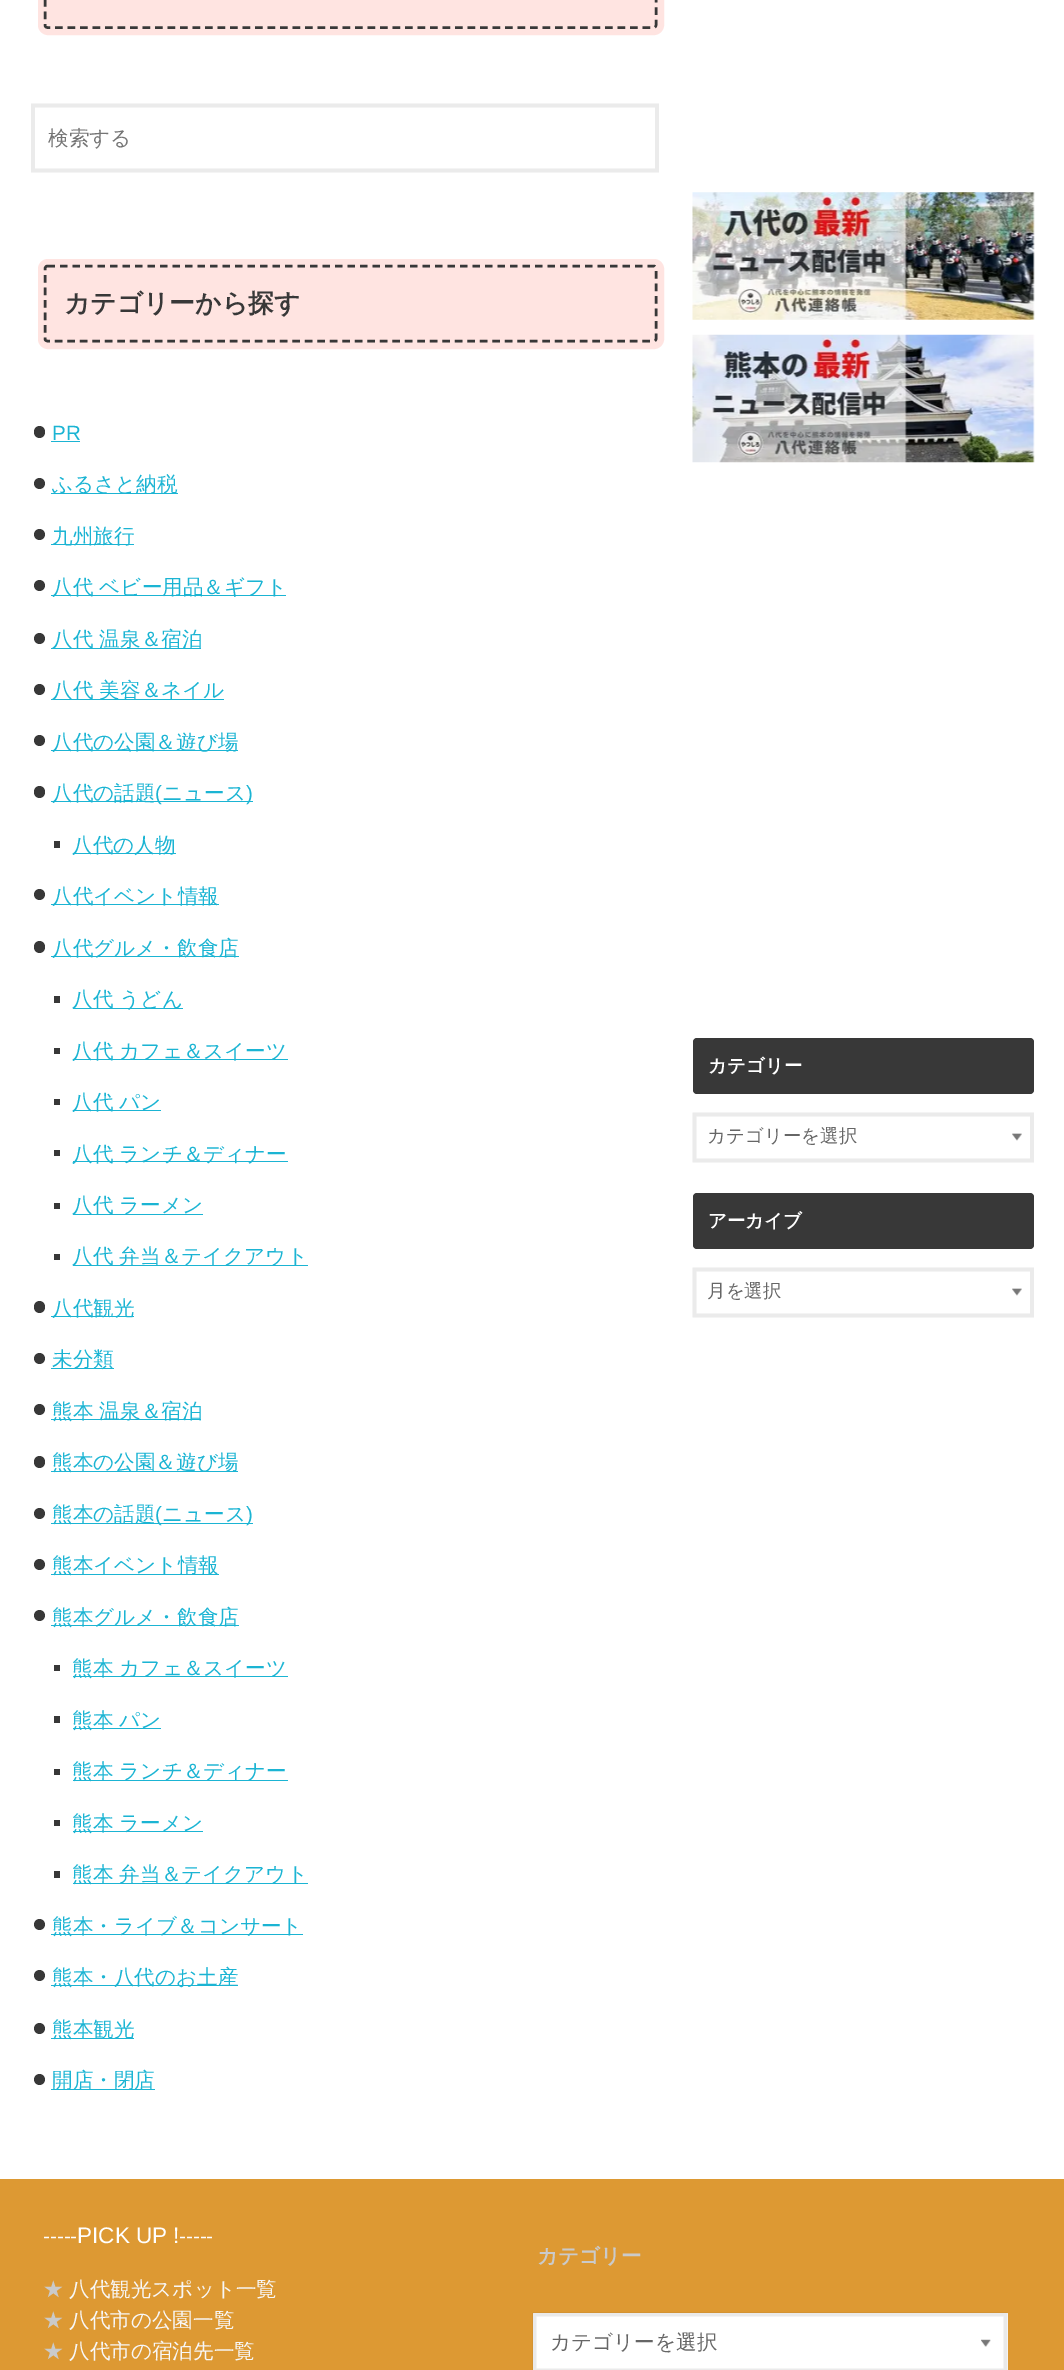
%!PS
<< /PageSize [1064 2370] /PageUsesTransparency true >> setpagedevice
/m/moveto load def
/l/rlineto load def
/c/rcurveto load def
/z/closepath load def
/f/fill load def
/s/stroke load def
/w/setlinewidth load def
/C { dup -16 bitshift 255 div exch dup -8 bitshift 255 and 255 div exch 255 and 255 div setrgbcolor } def
/F { [ exch dup neg 0 0 3 -1 roll 0 0 ] selectfont } def
/T { moveto show } def
/R { rectfill } def
/A { dup .setfillconstantalpha .setstrokeconstantalpha } def
/O { newpath 0 360 arc closepath } def
/Q { 5 dict begin { /r /h /w /y /x } { exch def } forall
  x r add y moveto x w add y 2 copy h add r arct x w add y h add x 1 index r arct
  x y h add x y r arct x y 2 copy exch w add exch r arct closepath end } def
/I { 5 dict begin { /h /w /y /x /name } { exch def } forall
  gsave x y translate w h scale
  w h 8 [w 0 0 h 0 0] name (r) file false 3 colorimage grestore end } def
0 .pushpdf14devicefilter
0 2370 translate 1 -1 scale
4 setmiterlimit
16#FFFFFF C
0 0 1064 2370 R
16#FFE4E1 C
6 w
41 -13 620 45 7 Q s
44 -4 614 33 4 Q f
16#383838 C
2.5 w
[7.5 5] 0 setdash
47.5 -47.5 m 606.5 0 l 1 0 2 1 2 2.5 c 0 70 l 0 1.5 -1 2.5 -2 2.5 c -606.5 0 l -1.5 0 -2.5 -1 -2.5 -2.5 c 0 -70 l 0 -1.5 1 -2.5 2.5 -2.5 c z s
16#EBEBEB C
3.8 w
[] 0 setdash
33 105.5 m 624 0 l 0 65 l -624 0 l z s
/WenQuanYiZenHei-Medium 20.6 F
16#757575 C
(検索する) 48 145 T
16#FFE4E1 C
6 w
41 262 620 84 7 Q s
44 265 614 78 4 Q f
16#383838 C
2.5 w
[7.5 5] 0 setdash
47.5 266 m 606.5 0 l 1 0 2 1.5 2 3 c 0 70 l 0 1 -1 2 -2 2 c -606.5 0 l -1.5 0 -2.5 -1 -2.5 -2 c 0 -70 l 0 -1.5 1 -3 2.5 -3 c z s
/WenQuanYiZenHei-Bold 25.75 F
(カテゴリーから探す) 64 312 T
34 426 11 12 5.5 Q f
/LiberationSans-Regular 20.6 F
16#1BB4D3 C
(PR) 52 440 T
51 441 29 1 R
16#383838 C
39.5 483.5 5.5 O f
16#1BB4D3 C
51 493 127 1 R
/WenQuanYiZenHei-Medium 20.6 F
(ふるさと納税) 52 491 T
16#383838 C
39.5 534.5 5.5 O f
16#1BB4D3 C
51 544 83 1 R
(九州旅行) 52 543 T
16#383838 C
39.5 585.5 5.5 O f
16#1BB4D3 C
51 595 235 1 R
(八代 ベビー用品＆ギフト) 52 594 T
16#383838 C
39.5 638.5 5.5 O f
16#1BB4D3 C
51 648 150 1 R
(八代 温泉＆宿泊) 52 646 T
16#383838 C
39.5 689.5 5.5 O f
16#1BB4D3 C
51 699 173 1 R
(八代 美容＆ネイル) 52 697 T
16#383838 C
39.5 740.5 5.5 O f
16#1BB4D3 C
51 750 187 1 R
(八代の公園＆遊び場) 52 749 T
16#383838 C
34 786 11 12 5.5 Q f
16#1BB4D3 C
51 801 202 1 R
(八代の話題) 52 800 T
/LiberationSans-Regular 20.6 F
(\() 155 800 T
/WenQuanYiZenHei-Medium 20.6 F
(ニュース) 162 800 T
/LiberationSans-Regular 20.6 F
(\)) 246 800 T
16#383838 C
54 841 6 7 R
16#1BB4D3 C
73 853 103 1 R
/WenQuanYiZenHei-Medium 20.6 F
(八代の人物) 72 852 T
16#383838 C
39.5 894.5 5.5 O f
16#1BB4D3 C
51 904 168 1 R
(八代イベント情報) 52 903 T
16#383838 C
34 941 11 12 5.5 Q f
16#1BB4D3 C
51 956 188 1 R
(八代グルメ・飲食店) 52 955 T
16#383838 C
54 996 6 7 R
16#1BB4D3 C
73 1008 110 1 R
(八代 うどん) 72 1006 T
16#383838 C
54 1048 6 6 R
16#1BB4D3 C
73 1059 215 1 R
(八代 カフェ＆スイーツ) 72 1058 T
16#383838 C
54 1099 6 6 R
16#1BB4D3 C
73 1110 88 1 R
(八代 パン) 72 1109 T
16#383838 C
54 1150 6 6 R
16#1BB4D3 C
73 1161 215 1 R
(八代 ランチ＆ディナー) 72 1161 T
16#383838 C
54 1203 6 6 R
16#1BB4D3 C
73 1214 130 1 R
(八代 ラーメン) 72 1212 T
16#383838 C
54 1254 6 6 R
16#1BB4D3 C
73 1265 235 1 R
(八代 弁当＆テイクアウト) 72 1263 T
16#383838 C
34 1301 11 12 5.5 Q f
16#1BB4D3 C
51 1316 83 1 R
(八代観光) 52 1315 T
16#383838 C
39.5 1358.5 5.5 O f
16#1BB4D3 C
51 1368 63 1 R
(未分類) 52 1366 T
16#383838 C
39.5 1409.5 5.5 O f
16#1BB4D3 C
51 1419 150 1 R
(熊本 温泉＆宿泊) 52 1418 T
16#383838 C
34 1456 11 12 5.5 Q f
16#1BB4D3 C
51 1471 187 1 R
(熊本の公園＆遊び場) 52 1469 T
16#383838 C
39.5 1513.5 5.5 O f
16#1BB4D3 C
51 1523 202 1 R
(熊本の話題) 52 1521 T
/LiberationSans-Regular 20.6 F
(\() 155 1521 T
/WenQuanYiZenHei-Medium 20.6 F
(ニュース) 162 1521 T
/LiberationSans-Regular 20.6 F
(\)) 246 1521 T
16#383838 C
39.5 1564.5 5.5 O f
16#1BB4D3 C
51 1574 168 1 R
/WenQuanYiZenHei-Medium 20.6 F
(熊本イベント情報) 52 1572 T
16#383838 C
39.5 1615.5 5.5 O f
16#1BB4D3 C
51 1625 188 1 R
(熊本グルメ・飲食店) 52 1624 T
16#383838 C
54 1665 6 6 R
16#1BB4D3 C
73 1676 215 1 R
(熊本 カフェ＆スイーツ) 72 1675 T
16#383838 C
54 1716 6 7 R
16#1BB4D3 C
73 1728 88 1 R
(熊本 パン) 72 1727 T
16#383838 C
54 1769 6 6 R
16#1BB4D3 C
73 1780 215 1 R
(熊本 ランチ＆ディナー) 72 1778 T
16#383838 C
54 1820 6 6 R
16#1BB4D3 C
73 1831 130 1 R
(熊本 ラーメン) 72 1830 T
16#383838 C
54 1871 6 7 R
16#1BB4D3 C
73 1883 235 1 R
(熊本 弁当＆テイクアウト) 72 1881 T
16#383838 C
39.5 1924.5 5.5 O f
16#1BB4D3 C
51 1934 252 1 R
(熊本・ライブ＆コンサート) 52 1933 T
16#383838 C
39.5 1975.5 5.5 O f
16#1BB4D3 C
51 1985 187 1 R
(熊本・八代のお土産) 52 1984 T
16#383838 C
39.5 2028.5 5.5 O f
16#1BB4D3 C
51 2038 83 1 R
(熊本観光) 52 2036 T
16#383838 C
39.5 2079.5 5.5 O f
16#1BB4D3 C
51 2089 104 1 R
(開店・閉店) 52 2087 T
(1.rgb) 692 192 343 128 I
(2.rgb) 692 334 343 129 I
16#383838 C
693 1038 341 56 4 Q f
/WenQuanYiZenHei-Bold 18.5 F
16#FFFFFF C
(カテゴリー) 708 1072 T
(3.rgb) 1012 1133 10 8 I
16#EBEBEB C
3.8 w
[] 0 setdash
694.5 1114.5 m 337.5 0 l 0 46 l -337.5 0 l z s
/WenQuanYiZenHei-Medium 18.5 F
16#666666 C
(カテゴリーを選択) 707 1142 T
16#383838 C
693 1193 341 56 4 Q f
/WenQuanYiZenHei-Bold 18.5 F
16#FFFFFF C
(アーカイブ) 708 1227 T
(3.rgb) 1012 1288 10 8 I
16#EBEBEB C
694.5 1269.5 m 337.5 0 l 0 46 l -337.5 0 l z s
/WenQuanYiZenHei-Medium 18.5 F
16#666666 C
(月を選択) 707 1297 T
16#DD9933 C
0 2179 1064 191 R
/LiberationSans-Regular 20.6 F
16#FFFFFF C
(‐‐‐‐‐) 43 2243 T
/LiberationSans-Regular 22.5 F
(PICK UP !) 77 2243 T
/LiberationSans-Regular 20.6 F
(‐‐‐‐‐) 179 2243 T
/WenQuanYiZenHei-Medium 20.6 F
16#CACACA C
(★) 43 2296 T
16#F7F7F7 C
(八代観光スポット一覧) 69 2296 T
16#CACACA C
(★) 43 2327 T
16#F7F7F7 C
(八代市の公園一覧) 69 2327 T
16#CACACA C
(★) 43 2358 T
16#F7F7F7 C
(八代市の宿泊先一覧) 69 2358 T
/WenQuanYiZenHei-Bold 20.6 F
16#CACACA C
(カテゴリー) 537 2263 T
16#FFFFFF C
533 2313 475 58 1 Q f
(4.rgb) 981 2339 10 8 I
0.1 A
16#333333 C
534.5 2314.5 m 471 0 l 0 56 l -471 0 l z s
/WenQuanYiZenHei-Medium 20.6 F
1 A
16#666666 C
(カテゴリーを選択) 550 2349 T
.poppdf14devicefilter showpage
